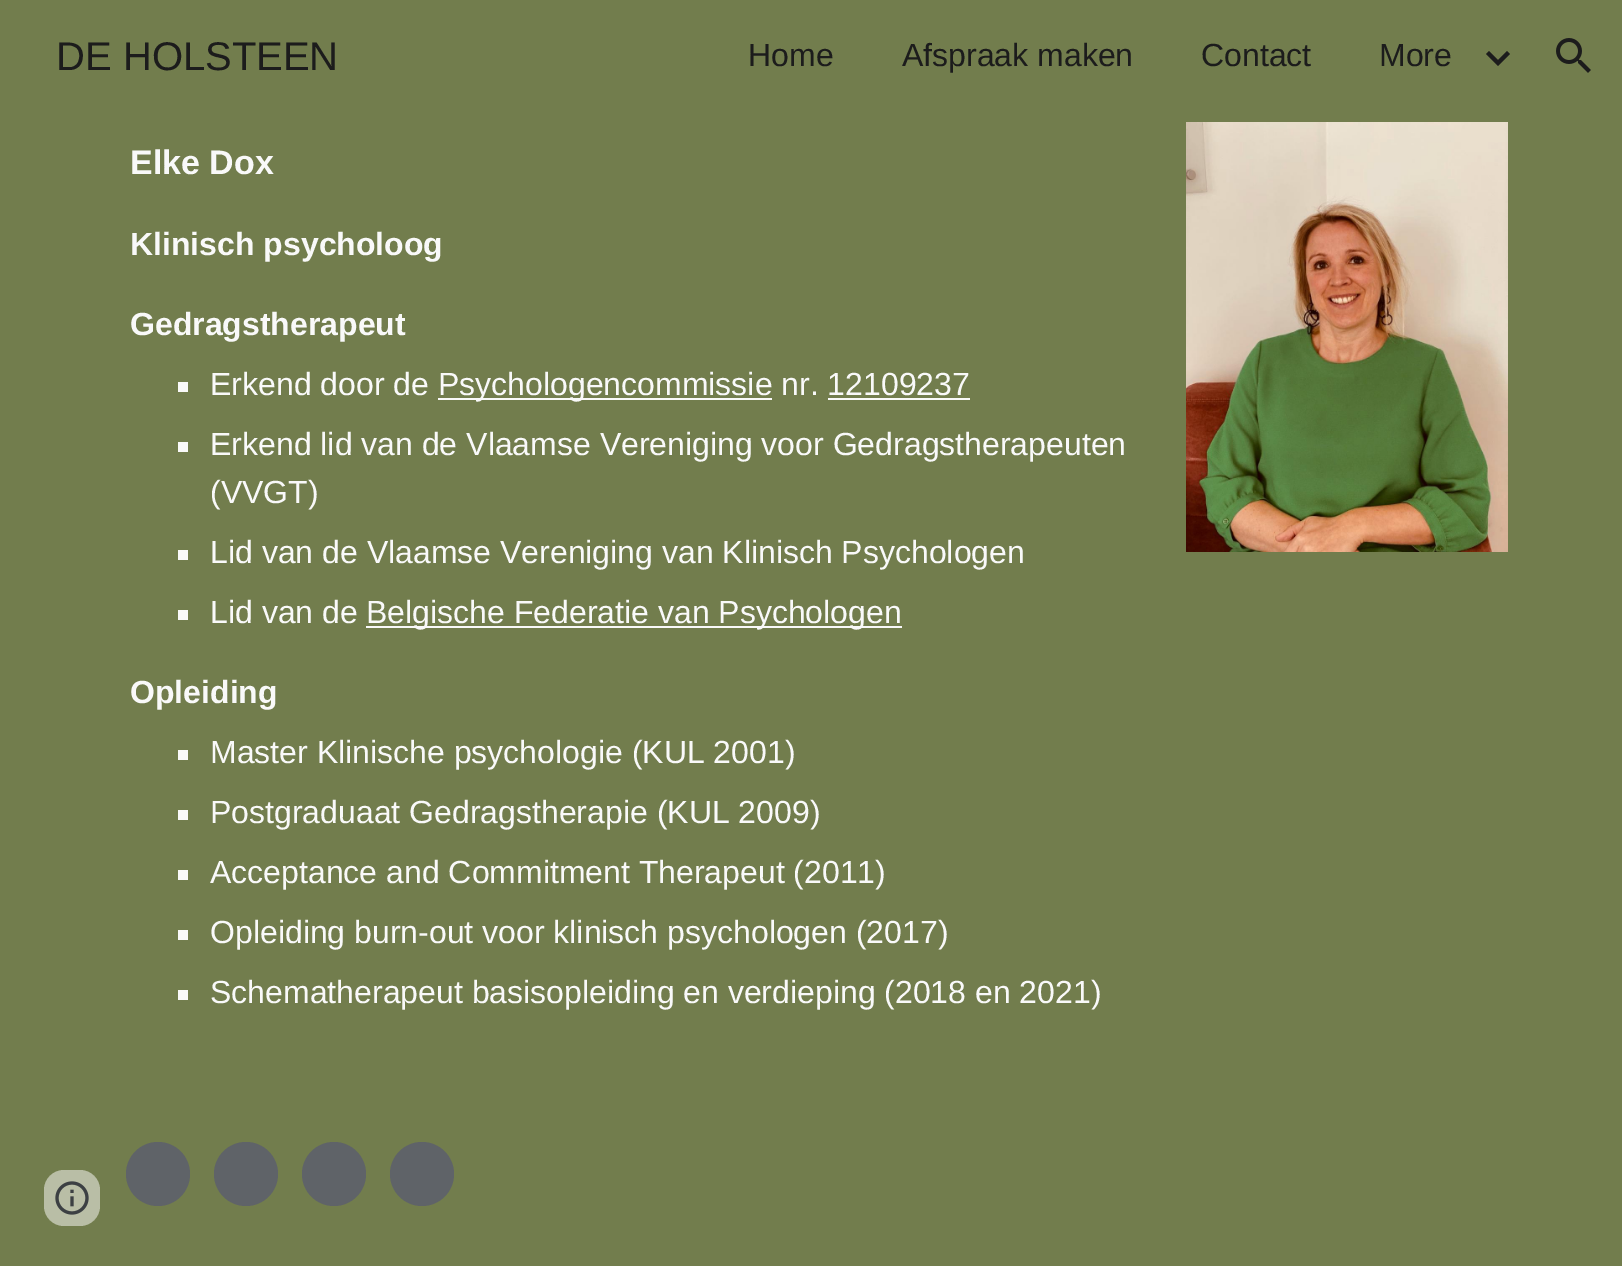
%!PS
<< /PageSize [1622 1266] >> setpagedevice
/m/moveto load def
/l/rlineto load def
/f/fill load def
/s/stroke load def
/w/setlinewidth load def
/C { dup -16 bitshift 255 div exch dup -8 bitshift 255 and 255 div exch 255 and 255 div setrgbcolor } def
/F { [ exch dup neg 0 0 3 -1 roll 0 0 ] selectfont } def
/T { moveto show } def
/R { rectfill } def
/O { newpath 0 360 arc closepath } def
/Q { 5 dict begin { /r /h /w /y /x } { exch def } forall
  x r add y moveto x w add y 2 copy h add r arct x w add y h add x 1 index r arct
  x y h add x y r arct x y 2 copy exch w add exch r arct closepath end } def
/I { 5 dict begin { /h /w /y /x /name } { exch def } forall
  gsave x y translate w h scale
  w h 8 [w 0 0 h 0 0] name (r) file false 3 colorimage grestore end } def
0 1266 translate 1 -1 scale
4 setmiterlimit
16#727D4D C
0 0 1622 1266 R
/LiberationSans-Regular 40 F
16#1C1C1C C
(DE HOLSTEEN) 56 70 T
/LiberationSans-Regular 32 F
(Home) 748 66 T
(Afspraak maken) 902 66 T
(Contact) 1201 66 T
(More) 1379 66 T
4 w
1487.5 52.5 m 12 12 l 1496.5 64.5 m 12 -12 l s
(1.rgb) 1556 38 35 35 I
/LiberationSans-Bold 34 F
16#F9F9F9 C
(Elke Dox) 130 174 T
/LiberationSans-Bold 32 F
(Klinisch psycholoog) 130 255 T
(Gedragstherapeut) 130 335 T
178 382 10 10 R
/LiberationSans-Regular 32 F
(Erkend door de) 210 395 T
438 398 334 2 R
(Psychologencommissie nr. 12109237) 438 395 T
828 398 142 2 R
178 442 10 10 R
(Erkend lid van de Vlaamse Vereniging voor Gedragstherapeuten) 210 455 T
(\(VVGT\)) 210 503 T
178 550 10 10 R
(Lid van de Vlaamse Vereniging van Klinisch Psychologen) 210 563 T
178 610 10 10 R
(Lid van de) 210 623 T
366 626 536 2 R
(Belgische Federatie van Psychologen) 366 623 T
/LiberationSans-Bold 32 F
(Opleiding) 130 703 T
178 750 10 10 R
/LiberationSans-Regular 32 F
(Master Klinische psychologie \(KUL 2001\)) 210 763 T
178 810 10 10 R
(Postgraduaat Gedragstherapie \(KUL 2009\)) 210 823 T
178 870 10 10 R
(Acceptance and Commitment Therapeut \(2011\)) 210 883 T
178 930 10 10 R
(Opleiding burn-out voor klinisch psychologen \(2017\)) 210 943 T
178 990 10 10 R
(Schematherapeut basisopleiding en verdieping \(2018 en 2021\)) 210 1003 T
(2.rgb) 1186 122 322 430 I
16#B9BEA6 C
44 1170 56 56 20 Q f
(3.rgb) 55 1181 34 34 I
16#5F6368 C
158 1174 32 O f
246 1174 32 O f
334 1174 32 O f
422 1174 32 O f
showpage
